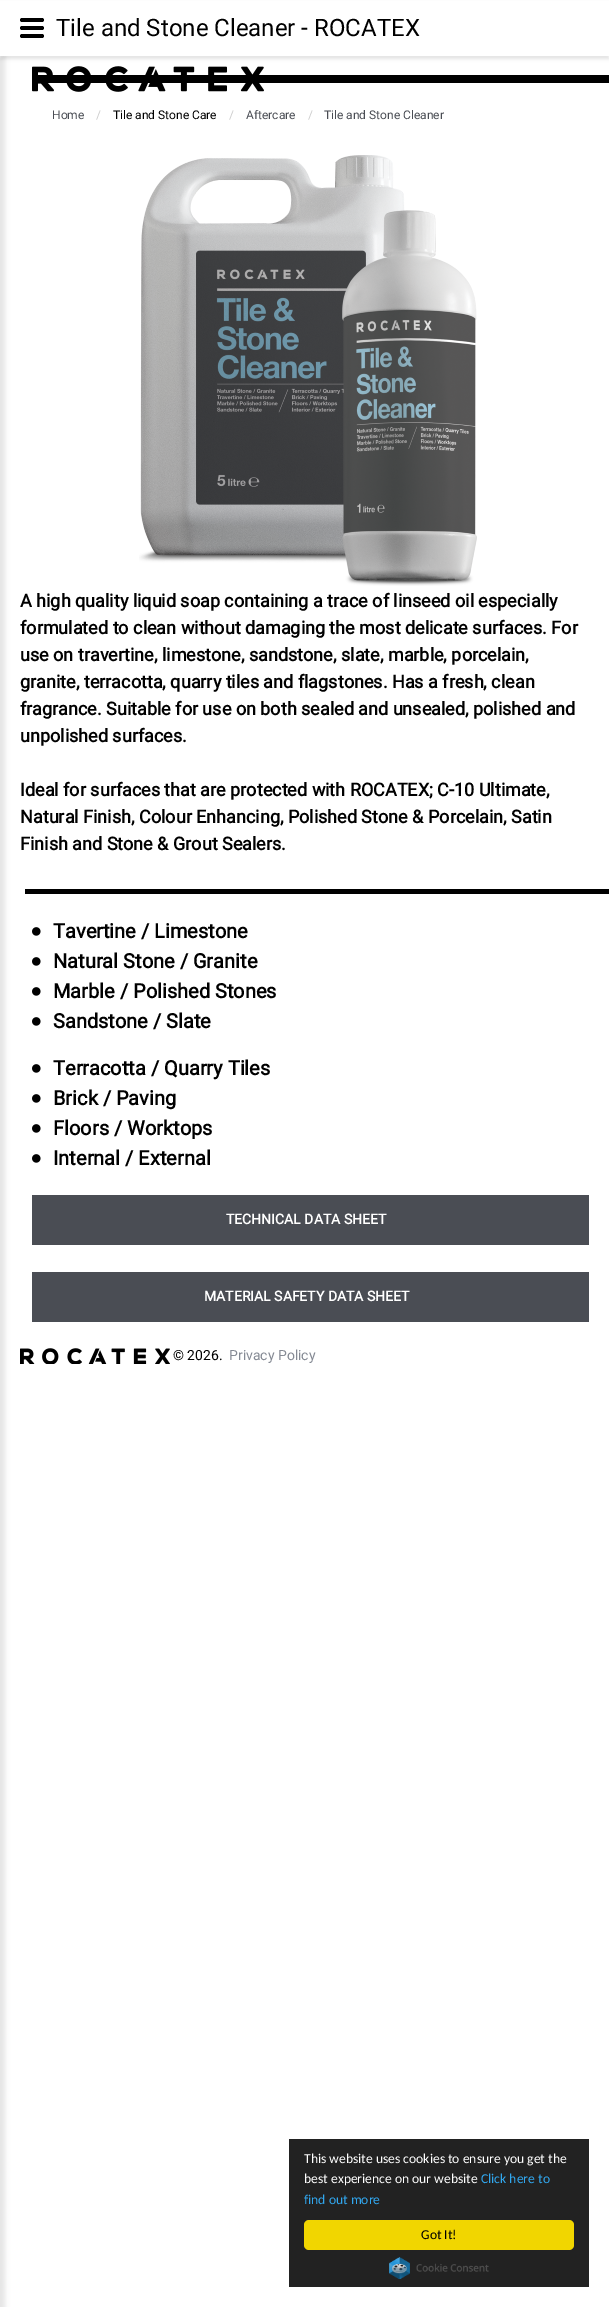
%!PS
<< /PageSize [609 2307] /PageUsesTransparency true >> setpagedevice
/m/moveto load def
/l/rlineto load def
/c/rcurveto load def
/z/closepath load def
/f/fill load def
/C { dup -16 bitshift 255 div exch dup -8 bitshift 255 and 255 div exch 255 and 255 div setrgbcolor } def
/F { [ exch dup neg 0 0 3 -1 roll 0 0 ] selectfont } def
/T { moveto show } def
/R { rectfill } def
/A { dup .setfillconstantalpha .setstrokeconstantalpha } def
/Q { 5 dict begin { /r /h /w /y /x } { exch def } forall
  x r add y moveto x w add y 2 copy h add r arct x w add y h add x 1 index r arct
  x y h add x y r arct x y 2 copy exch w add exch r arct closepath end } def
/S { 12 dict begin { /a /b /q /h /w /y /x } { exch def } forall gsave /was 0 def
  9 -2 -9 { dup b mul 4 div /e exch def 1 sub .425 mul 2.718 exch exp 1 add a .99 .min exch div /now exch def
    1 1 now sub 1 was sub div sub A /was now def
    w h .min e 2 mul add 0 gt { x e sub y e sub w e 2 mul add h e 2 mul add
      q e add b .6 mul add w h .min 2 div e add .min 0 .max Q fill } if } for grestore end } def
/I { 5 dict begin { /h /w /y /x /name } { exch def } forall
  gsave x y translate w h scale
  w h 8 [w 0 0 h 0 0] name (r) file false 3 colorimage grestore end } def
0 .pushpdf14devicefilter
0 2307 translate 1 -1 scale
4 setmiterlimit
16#FFFFFF C
0 0 609 2307 R
16#000000 C
0 3 609 56 0 1.5 .1 S
-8 56 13 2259 0 2.5 .1 S
16#FFFFFF C
0 1 609 55 R
16#000000 C
42 30 m -20 0 l -1 0 -2 -1 -2 -2 c 0 -1 1 -2 2 -2 c 20 0 l 1 0 2 1 2 2 c 0 1 -1 2 -2 2 c z 42 38 m -20 0 l -1 0 -2 -1 -2 -2 c 0 -1 1 -2 2 -2 c 20 0 l 1 0 2 1 2 2 c 0 1 -1 2 -2 2 c z 42 22 m -20 0 l -1 0 -2 -1 -2 -2 c 0 -1 1 -2 2 -2 c 20 0 l 1 0 2 1 2 2 c 0 1 -1 2 -2 2 c z f
/Roboto-Regular 24 F
(Tile and Stone Cleaner - ROCATEX) 56 36 T
(1.rgb) 32 66 232 26 I
32 75 577 8 R
/Roboto-Regular 12 F
16#4A4D54 C
(Home) 52 119 T
16#CCCCCC C
(/) 96 119 T
16#000000 C
(Tile and Stone Care) 113 119 T
16#CCCCCC C
(/) 229 119 T
16#4A4D54 C
(Aftercare) 246 119 T
16#CCCCCC C
(/) 308 119 T
16#4A4D54 C
(Tile and Stone Cleaner) 324 119 T
(2.rgb) 139 155 338 431 I
/Roboto-Bold 18 F
16#000000 C
(A high quality liquid soap containing a trace of linseed oil especially) 20 607 T
(formulated to clean without damaging the most delicate surfaces. For) 20 634 T
(use on travertine, limestone, sandstone, slate, marble, porcelain,) 20 661 T
(granite, terracotta, quarry tiles and flagstones. Has a fresh, clean) 20 688 T
(fragrance. Suitable for use on both sealed and unsealed, polished and) 20 715 T
(unpolished surfaces.) 20 742 T
(Ideal for surfaces that are protected with ROCATEX; C-10 Ultimate,) 20 796 T
(Natural Finish, Colour Enhancing, Polished Stone & Porcelain, Satin) 20 823 T
(Finish and Stone & Grout Sealers.) 20 850 T
25 889 584 5 R
(3.rgb) 32 927 9 9 I
/Roboto-Bold 20 F
(Tavertine / Limestone) 53 938 T
(3.rgb) 32 957 9 9 I
(Natural Stone / Granite) 53 968 T
(3.rgb) 32 987 9 9 I
(Marble / Polished Stones) 53 998 T
(3.rgb) 32 1017 9 9 I
(Sandstone / Slate) 53 1028 T
(3.rgb) 32 1064 9 9 I
(Terracotta / Quarry Tiles) 53 1075 T
(3.rgb) 32 1094 9 9 I
(Brick / Paving) 53 1105 T
(3.rgb) 32 1124 9 9 I
(Floors / Worktops) 53 1135 T
(3.rgb) 32 1154 9 9 I
(Internal / External) 53 1165 T
16#4A4D54 C
32 1195 557 50 R
/Roboto-Bold 14 F
16#FFFFFF C
(TECHNICAL DATA SHEET) 226 1224 T
16#4A4D54 C
32 1272 557 50 R
16#FFFFFF C
(MATERIAL SAFETY DATA SHEET) 204 1301 T
(4.rgb) 20 1348 150 16 I
/Roboto-Regular 14 F
16#000000 C
(© 2026.) 173 1360 T
16#858A94 C
(Privacy Policy) 229 1360 T
16#222222 C
289 2139 300 148 R
/Carlito-Regular 13.6 F
16#FFFFFF C
(This website uses cookies to ensure you get the) 304 2163 T
(best experience on our website) 304 2183 T
16#31A8F0 C
(Click here to) 481 2183 T
(find out more) 304 2204 T
16#F1D600 C
304 2220 270 30 5 Q f
16#000000 C
(Got It!) 421 2239 T
(5.rgb) 389 2257 100 22 I
.poppdf14devicefilter showpage
